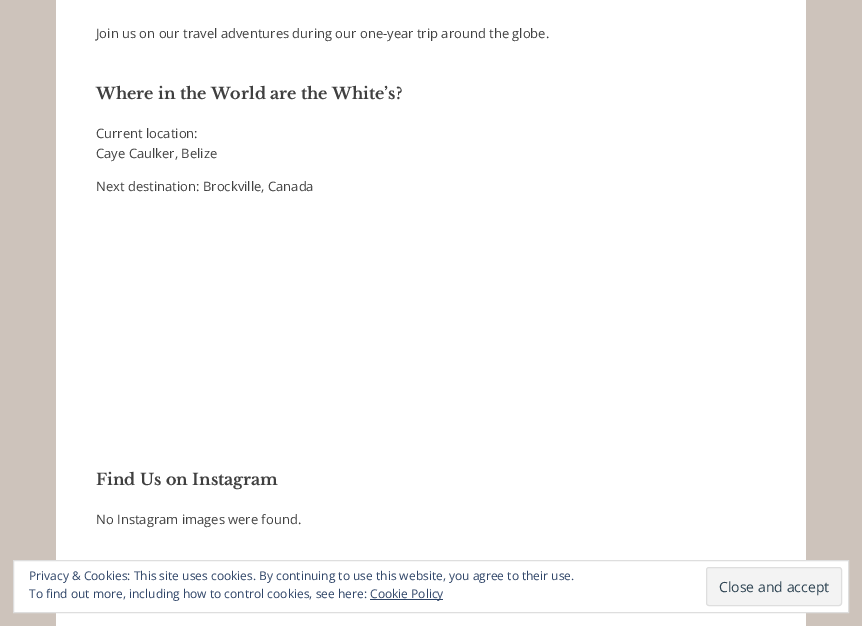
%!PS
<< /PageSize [862 626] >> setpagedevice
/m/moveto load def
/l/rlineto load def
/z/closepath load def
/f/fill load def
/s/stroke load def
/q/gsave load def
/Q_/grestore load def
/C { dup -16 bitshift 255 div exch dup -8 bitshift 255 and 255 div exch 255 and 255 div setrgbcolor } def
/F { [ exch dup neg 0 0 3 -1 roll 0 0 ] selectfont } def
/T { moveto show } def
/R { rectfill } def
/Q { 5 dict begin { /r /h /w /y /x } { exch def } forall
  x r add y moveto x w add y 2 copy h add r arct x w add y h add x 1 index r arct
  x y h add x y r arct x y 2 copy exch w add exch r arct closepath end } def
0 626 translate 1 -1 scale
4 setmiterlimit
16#CDC3BB C
0 0 862 626 R
16#FFFFFF C
56 0 750 626 R
/OpenSans-Regular 13 F
16#404040 C
(Join us on our travel adventures during our one-year trip around the globe.) 96 38 T
/LibreBaskerville-Bold 16 F
(Where in the World are the White’s?) 96 99 T
/OpenSans-Regular 13 F
(Current location:) 96 138 T
(Caye Caulker, Belize) 96 158 T
(Next destination: Brockville, Canada) 96 191 T
/LibreBaskerville-Bold 16 F
(Find Us on Instagram) 96 485 T
/OpenSans-Regular 13 F
(No Instagram images were found.) 96 524 T
16#FFFFFF C
13.5 560.5 m 835 0 l 0 52 l -835 0 l z q f Q_
16#DEDEDE C
s
/OpenSans-Regular 12 F
16#2E4467 C
(Privacy & Cookies: This site uses cookies. By continuing to use this website, you agree to their use.) 29 580 T
(To find out more, including how to control cookies, see here:) 29 598 T
370 599 73 1 R
(Cookie Policy) 370 598 T
16#F3F3F3 C
706.5 567.5 135 38 2.5 Q q f Q_
16#DEDEDE C
s
/OpenSans-Regular 14 F
16#2E4453 C
(Close and accept) 719 592 T
showpage
